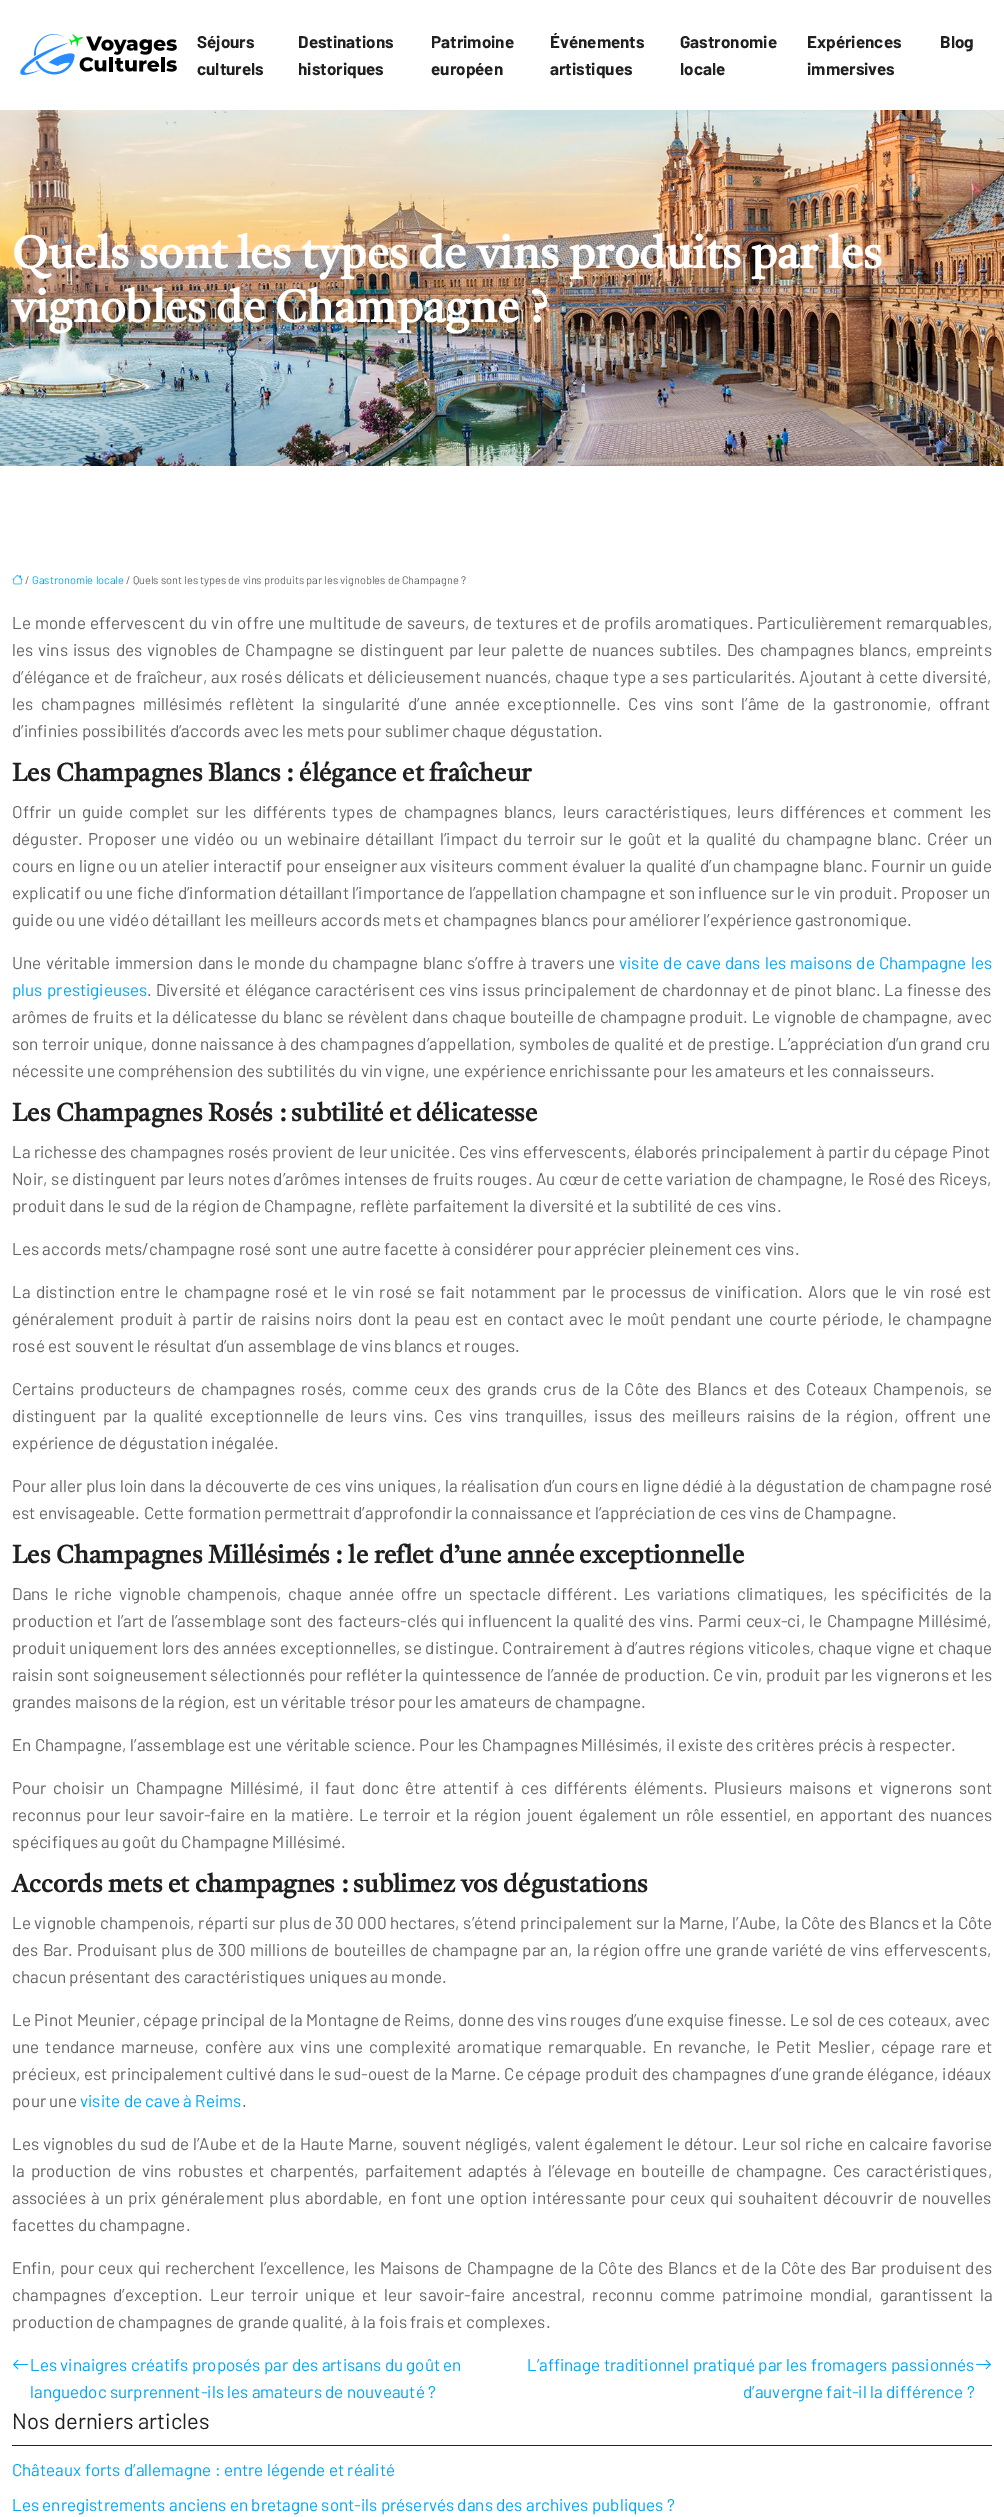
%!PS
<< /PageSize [1004 2517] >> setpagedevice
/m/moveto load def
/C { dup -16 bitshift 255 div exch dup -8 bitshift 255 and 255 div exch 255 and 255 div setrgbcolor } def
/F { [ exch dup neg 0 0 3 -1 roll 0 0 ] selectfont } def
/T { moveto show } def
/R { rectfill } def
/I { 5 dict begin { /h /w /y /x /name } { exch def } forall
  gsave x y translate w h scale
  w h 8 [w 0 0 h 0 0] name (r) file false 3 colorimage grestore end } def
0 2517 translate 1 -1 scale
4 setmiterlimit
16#FFFFFF C
0 0 1004 2517 R
(1.rgb) 20 34 157 41 I
/Barlow-Bold 17 F
16#202020 C
(Séjours) 197 48 T
(culturels) 197 75 T
(Destinations) 298 48 T
(historiques) 298 75 T
(Patrimoine) 431 48 T
(européen) 431 75 T
(Événements) 550 48 T
(artistiques) 550 75 T
(Gastronomie) 680 48 T
(locale) 680 75 T
(Expériences) 807 48 T
(immersives) 807 75 T
(Blog) 940 48 T
(2.rgb) 0 110 1004 356 I
/Castoro-Bold 45 F
16#FFFFFF C
(Quels sont les types de vins produits par les) 12 268 T
(vignobles de Champagne ?) 12 322 T
(3.rgb) 12 574 11 11 I
/Barlow-Regular 11 F
16#646464 C
(/) 25 584 T
16#00A7F8 C
(Gastronomie locale) 32 584 T
16#646464 C
(/ Quels sont les types de vins produits par les vignobles de Champagne ?) 126 584 T
/Barlow-Regular 17 F
12 629 m .75 0 32 (Le monde effervescent du vin offre une multitude de saveurs, de textures et de profils aromatiques. Particulièrement remarquables,) widthshow
12 656 m 1.5 0 32 (les vins issus des vignobles de Champagne se distinguent par leur palette de nuances subtiles. Des champagnes blancs, empreints) widthshow
12 683 m .5 0 32 (d’élégance et de fraîcheur, aux rosés délicats et délicieusement nuancés, chaque type a ses particularités. Ajoutant à cette diversité,) widthshow
12 710 m 4.25 0 32 (les champagnes millésimés reflètent la singularité d’une année exceptionnelle. Ces vins sont l’âme de la gastronomie, offrant) widthshow
(d’infinies possibilités d’accords avec les mets pour sublimer chaque dégustation.) 12 737 T
/Castoro-Bold 25 F
16#202020 C
(Les Champagnes Blancs : élégance et fraîcheur) 12 781 T
/Barlow-Regular 17 F
16#646464 C
12 818 m 2.75 0 32 (Offrir un guide complet sur les différents types de champagnes blancs, leurs caractéristiques, leurs différences et comment les) widthshow
12 845 m 2.1 0 32 (déguster. Proposer une vidéo ou un webinaire détaillant l’impact du terroir sur le goût et la qualité du champagne blanc. Créer un) widthshow
12 872 m .25 0 32 (cours en ligne ou un atelier interactif pour enseigner aux visiteurs comment évaluer la qualité d’un champagne blanc. Fournir un guide) widthshow
(explicatif ou une fiche d’information détaillant l’importance de l’appellation champagne et son influence sur le vin produit. Proposer un) 12 899 T
(guide ou une vidéo détaillant les meilleurs accords mets et champagnes blancs pour améliorer l’expérience gastronomique.) 12 926 T
12 969 m .9 0 32 (Une véritable immersion dans le monde du champagne blanc s’offre à travers une) widthshow
16#00A7F8 C
619 969 m .9 0 32 (visite de cave dans les maisons de Champagne les) widthshow
12 996 m 1 0 32 (plus prestigieuses) widthshow
16#646464 C
147 996 m .5 0 32 (. Diversité et élégance caractérisent ces vins issus principalement de chardonnay et de pinot blanc. La finesse des) widthshow
12 1023 m .4 0 32 (arômes de fruits et la délicatesse du blanc se révèlent dans chaque bouteille de champagne produit. Le vignoble de champagne, avec) widthshow
(son terroir unique, donne naissance à des champagnes d’appellation, symboles de qualité et de prestige. L’appréciation d’un grand cru) 12 1050 T
(nécessite une compréhension des subtilités du vin vigne, une expérience enrichissante pour les amateurs et les connaisseurs.) 12 1077 T
/Castoro-Bold 25 F
16#202020 C
(Les Champagnes Rosés : subtilité et délicatesse) 12 1121 T
/Barlow-Regular 17 F
16#646464 C
(La richesse des champagnes rosés provient de leur unicitée. Ces vins effervescents, élaborés principalement à partir du cépage Pinot) 12 1158 T
12 1185 m .25 0 32 (Noir, se distinguent par leurs notes d’arômes intenses de fruits rouges. Au cœur de cette variation de champagne, le Rosé des Riceys,) widthshow
(produit dans le sud de la région de Champagne, reflète parfaitement la diversité et la subtilité de ces vins.) 12 1212 T
(Les accords mets/champagne rosé sont une autre facette à considérer pour apprécier pleinement ces vins.) 12 1255 T
12 1298 m 2 0 32 (La distinction entre le champagne rosé et le vin rosé se fait notamment par le processus de vinification. Alors que le vin rosé est) widthshow
12 1325 m 1.6 0 32 (généralement produit à partir de raisins noirs dont la peau est en contact avec le moût pendant une courte période, le champagne) widthshow
(rosé est souvent le résultat d’un assemblage de vins blancs et rouges.) 12 1352 T
12 1395 m 2.5 0 32 (Certains producteurs de champagnes rosés, comme ceux des grands crus de la Côte des Blancs et des Coteaux Champenois, se) widthshow
12 1422 m 3.25 0 32 (distinguent par la qualité exceptionnelle de leurs vins. Ces vins tranquilles, issus des meilleurs raisins de la région, offrent une) widthshow
(expérience de dégustation inégalée.) 12 1449 T
12 1492 m .25 0 32 (Pour aller plus loin dans la découverte de ces vins uniques, la réalisation d’un cours en ligne dédié à la dégustation de champagne rosé) widthshow
(est envisageable. Cette formation permettrait d’approfondir la connaissance et l’appréciation de ces vins de Champagne.) 12 1519 T
/Castoro-Bold 25 F
16#202020 C
(Les Champagnes Millésimés : le reflet d’une année exceptionnelle) 12 1563 T
/Barlow-Regular 17 F
16#646464 C
12 1600 m 3.1 0 32 (Dans le riche vignoble champenois, chaque année offre un spectacle différent. Les variations climatiques, les spécificités de la) widthshow
12 1627 m .9 0 32 (production et l’art de l’assemblage sont des facteurs-clés qui influencent la qualité des vins. Parmi ceux-ci, le Champagne Millésimé,) widthshow
12 1654 m .2 0 32 (produit uniquement lors des années exceptionnelles, se distingue. Contrairement à d’autres régions viticoles, chaque vigne et chaque) widthshow
12 1681 m .25 0 32 (raisin sont soigneusement sélectionnés pour refléter la quintessence de l’année de production. Ce vin, produit par les vignerons et les) widthshow
(grandes maisons de la région, est un véritable trésor pour les amateurs de champagne.) 12 1708 T
(En Champagne, l’assemblage est une véritable science. Pour les Champagnes Millésimés, il existe des critères précis à respecter.) 12 1751 T
12 1794 m 3.4 0 32 (Pour choisir un Champagne Millésimé, il faut donc être attentif à ces différents éléments. Plusieurs maisons et vignerons sont) widthshow
12 1821 m 1.9 0 32 (reconnus pour leur savoir-faire en la matière. Le terroir et la région jouent également un rôle essentiel, en apportant des nuances) widthshow
(spécifiques au goût du Champagne Millésimé.) 12 1848 T
/Castoro-Bold 25 F
16#202020 C
(Accords mets et champagnes : sublimez vos dégustations) 12 1892 T
/Barlow-Regular 17 F
16#646464 C
12 1929 m .25 0 32 (Le vignoble champenois, réparti sur plus de 30 000 hectares, s’étend principalement sur la Marne, l’Aube, la Côte des Blancs et la Côte) widthshow
12 1956 m .6 0 32 (des Bar. Produisant plus de 300 millions de bouteilles de champagne par an, la région offre une grande variété de vins effervescents,) widthshow
(chacun présentant des caractéristiques uniques au monde.) 12 1983 T
(Le Pinot Meunier, cépage principal de la Montagne de Reims, donne des vins rouges d’une exquise finesse. Le sol de ces coteaux, avec) 12 2026 T
12 2053 m 2.6 0 32 (une tendance marneuse, confère aux vins une complexité aromatique remarquable. En revanche, le Petit Meslier, cépage rare et) widthshow
12 2080 m .1 0 32 (précieux, est principalement cultivé dans le sud-ouest de la Marne. Ce cépage produit des champagnes d’une grande élégance, idéaux) widthshow
(pour une) 12 2107 T
16#00A7F8 C
(visite de cave à Reims) 80 2107 T
16#646464 C
(.) 242 2107 T
12 2150 m .7 0 32 (Les vignobles du sud de l’Aube et de la Haute Marne, souvent négligés, valent également le détour. Leur sol riche en calcaire favorise) widthshow
12 2177 m 2.6 0 32 (la production de vins robustes et charpentés, parfaitement adaptés à l’élevage en bouteille de champagne. Ces caractéristiques,) widthshow
12 2204 m 1.75 0 32 (associées à un prix généralement plus abordable, en font une option intéressante pour ceux qui souhaitent découvrir de nouvelles) widthshow
(facettes du champagne.) 12 2231 T
12 2274 m .95 0 32 (Enfin, pour ceux qui recherchent l’excellence, les Maisons de Champagne de la Côte des Blancs et de la Côte des Bar produisent des) widthshow
12 2301 m 3.5 0 32 (champagnes d’exception. Leur terroir unique et leur savoir-faire ancestral, reconnu comme patrimoine mondial, garantissent la) widthshow
(production de champagnes de grande qualité, à la fois frais et complexes.) 12 2328 T
(4.rgb) 13 2359 15 11 I
16#00A7F8 C
(Les vinaigres créatifs proposés par des artisans du goût en) 30 2371 T
(languedoc surprennent-ils les amateurs de nouveauté ?) 30 2398 T
(L’affinage traditionnel pratiqué par les fromagers passionnés) 527 2371 T
(5.rgb) 976 2359 15 11 I
(d’auvergne fait-il la différence ?) 743 2398 T
16#222222 C
12 2445 980 1 R
/Barlow-Regular 22 F
16#202020 C
(Nos derniers articles) 12 2429 T
/Barlow-Regular 17 F
16#00A7F8 C
(Châteaux forts d’allemagne : entre légende et réalité) 12 2476 T
(Les enregistrements anciens en bretagne sont-ils préservés dans des archives publiques ?) 12 2511 T
showpage
